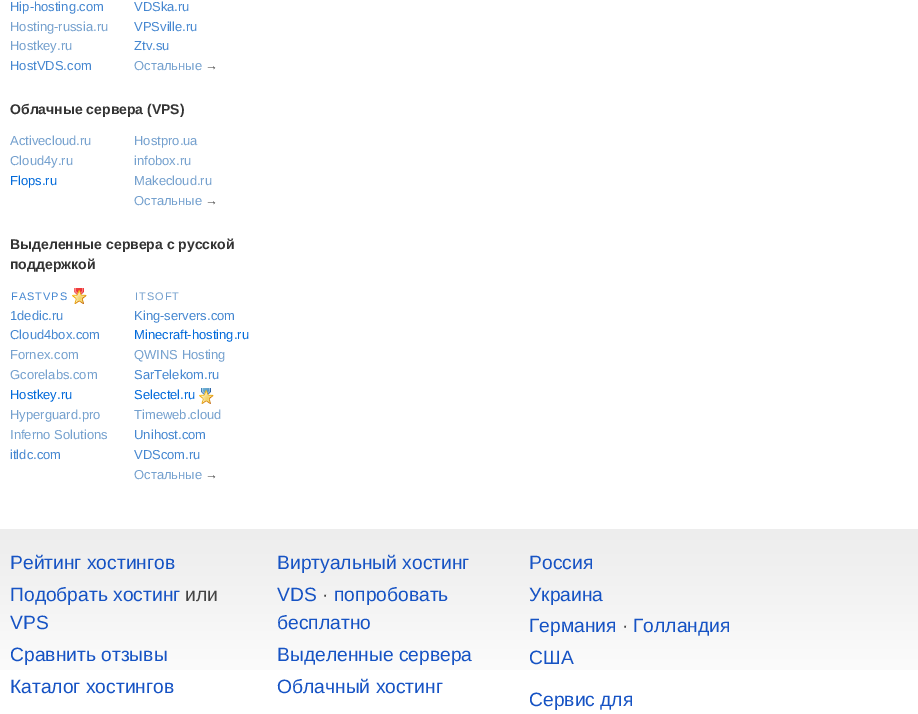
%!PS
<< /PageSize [918 714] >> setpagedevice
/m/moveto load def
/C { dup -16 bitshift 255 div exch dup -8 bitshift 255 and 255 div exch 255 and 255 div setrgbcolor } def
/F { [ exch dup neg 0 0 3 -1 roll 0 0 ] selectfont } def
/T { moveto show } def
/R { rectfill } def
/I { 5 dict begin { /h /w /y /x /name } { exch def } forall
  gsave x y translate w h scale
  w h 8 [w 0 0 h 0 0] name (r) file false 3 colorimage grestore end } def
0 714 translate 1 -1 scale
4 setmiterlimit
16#FFFFFF C
0 0 918 714 R
/LiberationSans-Regular 13 F
16#4486D0 C
(Hip-hosting.com) 10 11 T
16#74A0CE C
(Hosting-russia.ru) 10 31 T
(Hostkey.ru) 10 50 T
16#4486D0 C
(HostVDS.com) 10 70 T
(VDSka.ru) 134 11 T
(VPSville.ru) 134 31 T
(Ztv.su) 134 50 T
16#74A0CE C
(Остальные) 134 70 T
16#444444 C
(→) 205 70 T
/LiberationSans-Bold 14 F
16#333333 C
(Облачные сервера \(VPS\)) 10 114 T
/LiberationSans-Regular 13 F
16#74A0CE C
(Activecloud.ru) 10 145 T
(Cloud4y.ru) 10 165 T
16#0069DA C
(Flops.ru) 10 185 T
16#74A0CE C
(Hostpro.ua) 134 145 T
(infobox.ru) 134 165 T
(Makecloud.ru) 134 185 T
(Остальные) 134 205 T
16#444444 C
(→) 205 205 T
/LiberationSans-Bold 14 F
16#333333 C
(Выделенные сервера с русской) 10 249 T
(поддержкой) 10 269 T
/LiberationSans-Regular 11 F
16#4486D0 C
11 300 m 1 0 (FASTVPS) ashow
(1.rgb) 72 288 15 16 I
/LiberationSans-Regular 13 F
(1dedic.ru) 10 320 T
(Cloud4box.com) 10 339 T
16#74A0CE C
(Fornex.com) 10 359 T
(Gcorelabs.com) 10 379 T
16#0069DA C
(Hostkey.ru) 10 399 T
16#74A0CE C
(Hyperguard.pro) 10 419 T
(Inferno Solutions) 10 439 T
16#4486D0 C
(itldc.com) 10 459 T
/LiberationSans-Regular 11 F
16#74A0CE C
135 300 m 1 0 (ITSOFT) ashow
/LiberationSans-Regular 13 F
16#4486D0 C
(King-servers.com) 134 320 T
16#0069DA C
(Minecraft-hosting.ru) 134 339 T
16#74A0CE C
(QWINS Hosting) 134 359 T
16#4486D0 C
(SarTelekom.ru) 134 379 T
16#0069DA C
(Selectel.ru) 134 399 T
(2.rgb) 199 388 15 16 I
16#74A0CE C
(Timeweb.cloud) 134 419 T
16#4486D0 C
(Unihost.com) 134 439 T
(VDScom.ru) 134 459 T
16#74A0CE C
(Остальные) 134 479 T
16#444444 C
(→) 205 479 T
(3.rgb) 0 529 918 141 I
/LiberationSans-Regular 19.25 F
16#1653C4 C
(Рейтинг хостингов) 10 569 T
(Подобрать хостинг) 10 601 T
16#444444 C
(или) 185 601 T
16#1653C4 C
(VPS) 10 629 T
(Сравнить отзывы) 10 661 T
(Каталог хостингов) 10 693 T
(Виртуальный хостинг) 277 569 T
(VDS) 277 601 T
16#444444 C
(·) 322 601 T
16#1653C4 C
(попробовать) 334 601 T
(бесплатно) 277 629 T
(Выделенные сервера) 277 661 T
(Облачный хостинг) 277 693 T
(Россия) 529 569 T
(Украина) 529 601 T
(Германия) 529 632 T
16#444444 C
(·) 622 632 T
16#1653C4 C
(Голландия) 633 632 T
(США) 529 664 T
(Сервис для) 529 706 T
showpage
